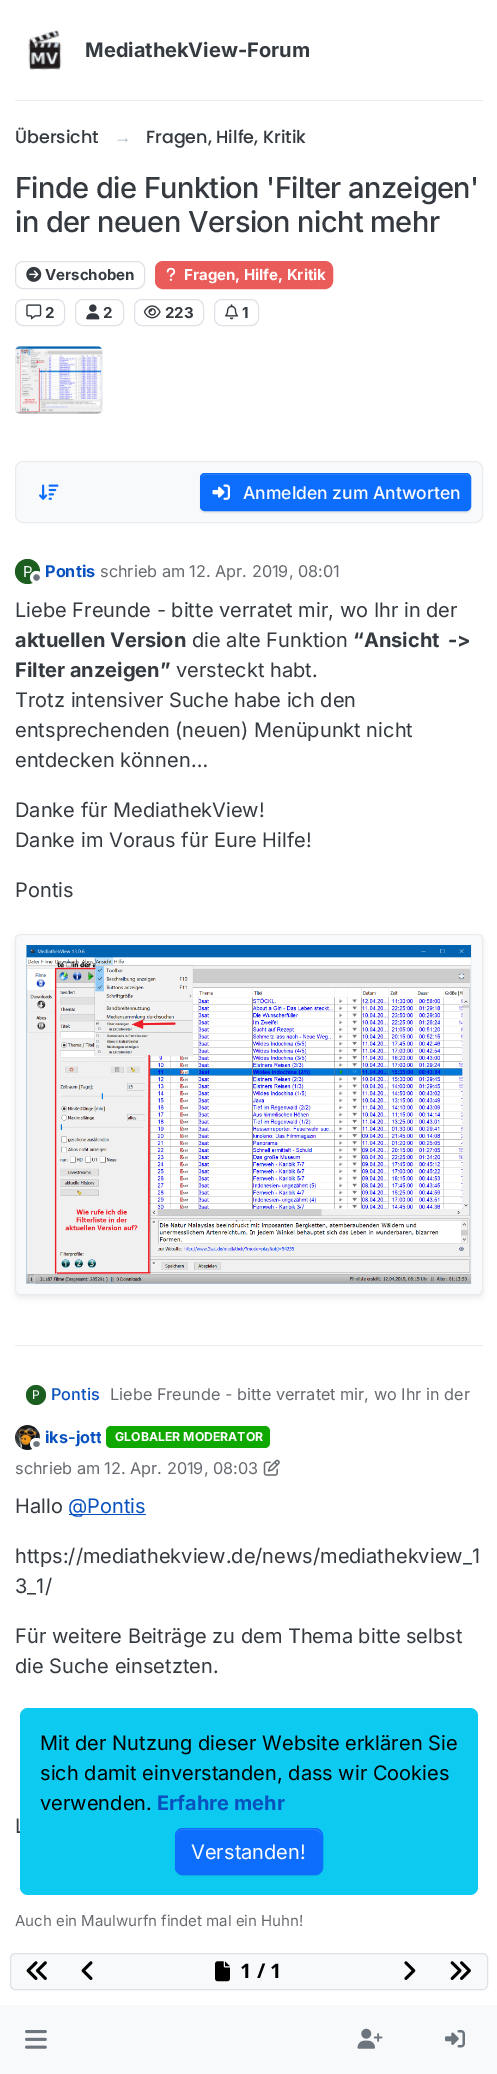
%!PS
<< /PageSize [497 2074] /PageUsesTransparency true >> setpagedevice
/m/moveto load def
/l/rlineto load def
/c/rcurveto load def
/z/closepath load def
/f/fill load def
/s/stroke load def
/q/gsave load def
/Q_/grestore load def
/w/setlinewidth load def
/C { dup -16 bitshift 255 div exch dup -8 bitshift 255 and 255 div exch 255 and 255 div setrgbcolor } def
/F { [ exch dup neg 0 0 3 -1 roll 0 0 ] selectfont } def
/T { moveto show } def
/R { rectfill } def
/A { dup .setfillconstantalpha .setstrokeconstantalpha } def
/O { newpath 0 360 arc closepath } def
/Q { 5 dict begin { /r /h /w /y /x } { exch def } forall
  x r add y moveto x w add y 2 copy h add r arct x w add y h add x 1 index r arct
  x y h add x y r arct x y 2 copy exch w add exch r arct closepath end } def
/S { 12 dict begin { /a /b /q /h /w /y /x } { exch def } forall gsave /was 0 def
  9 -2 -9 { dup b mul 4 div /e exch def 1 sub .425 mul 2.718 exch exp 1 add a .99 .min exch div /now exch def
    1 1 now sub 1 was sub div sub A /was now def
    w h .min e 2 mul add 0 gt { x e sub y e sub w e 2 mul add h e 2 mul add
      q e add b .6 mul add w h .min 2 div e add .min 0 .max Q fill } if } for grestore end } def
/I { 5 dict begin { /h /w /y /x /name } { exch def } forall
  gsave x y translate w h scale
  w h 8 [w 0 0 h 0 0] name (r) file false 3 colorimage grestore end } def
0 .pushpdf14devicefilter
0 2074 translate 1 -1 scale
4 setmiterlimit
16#FFFFFF C
0 0 497 2074 R
16#E9ECEF C
15 100 468 1 R
(1.rgb) 28 30 34 40 I
/Inter-Bold 20 F
16#343A40 C
(MediathekView-Forum) 85 57 T
/Poppins-Medium 17.5 F
(Übersicht) 15 143 T
/LiberationSans-Regular 17.5 F
16#ADB5BD C
(→) 114 143 T
/Poppins-Medium 17.5 F
16#343A40 C
(Fragen, Hilfe, Kritik) 146 143 T
/Inter-Medium 29 F
15 198 m -.6 0 (Finde die Funktion 'Filter anzeigen') ashow
15 232 m -.6 0 (in der neuen Version nicht mehr) ashow
16#DEE2E6 C
15.5 261.5 129 27 7.5 Q s
(2.rgb) 26 266 16 16 I
/Inter-Bold 15 F
16#343A40 C
(Verschoben) 45 280 T
16#E95C5A C
155.5 261.5 177 27 7.5 Q q f Q_
s
(3.rgb) 166 267 10 14 I
16#FFFFFF C
(Fragen, Hilfe, Kritik) 184 280 T
16#DEE2E6 C
15.5 299.5 49 26 7.5 Q s
(4.rgb) 26 304 16 16 I
16#343A40 C
(2) 45 318 T
16#DEE2E6 C
75.5 299.5 48 26 7.5 Q s
(5.rgb) 86 304 14 16 I
16#343A40 C
(2) 103 318 T
16#DEE2E6 C
134.5 299.5 69 26 7.5 Q s
(6.rgb) 143 305 18 14 I
16#343A40 C
(223) 165 318 T
16#DEE2E6 C
214.5 299.5 44 26 7.5 Q s
(7.rgb) 225 304 14 16 I
16#343A40 C
(1) 242 318 T
16#F8F9FA C
15 346 88 68 5 Q f
(8.rgb) 15 346 88 68 I
15.5 461.5 467 61 7.5 Q q f Q_
16#E9ECEF C
s
(9.rgb) 39 484 20 16 I
16#000000 C
200 474 271 39 5 .5 .07 S
16#0D6EFD C
200 473 271 38 5 Q f
16#3184FD C
205 475 m 261 0 l 2 0 4 2 4 4 c 0 -3 -1 -5 -4 -5 c -261 0 l -3 0 -4 2 -4 5 c 0 -2 2 -4 4 -4 c z f
16#0D6EFD C
200.5 473.5 270 37 4.5 Q s
(10.rgb) 212 484 18 16 I
/Inter-Medium 17.5 F
16#FFFFFF C
(Anmelden zum Antworten) 243 499 T
16#1B5E20 C
27.5 571.5 12.5 O f
/Inter-Regular 15 F
16#FFFFFF C
(P) 23 577 T
16#6C757D C
36.5 577.5 5 O q f Q_
16#FFFFFF C
3 w
s
/Inter-Bold 16.25 F
16#0951BE C
(Pontis) 45 577 T
/Inter-Regular 16.25 F
16#676B70 C
(schrieb am 12. Apr. 2019, 08:01) 100 577 T
/Inter-Regular 20 F
16#343A40 C
(Liebe Freunde - bitte verratet mir, wo Ihr in der) 15 617 T
/Inter-Bold 20 F
(aktuellen Version) 15 647 T
/Inter-Regular 20 F
(die alte Funktion) 192 647 T
/Inter-Bold 20 F
353 647 m 4 0 32 (“Ansicht ->) widthshow
(Filter anzeigen”) 15 677 T
/Inter-Regular 20 F
(versteckt habt.) 176 677 T
(Trotz intensiver Suche habe ich den) 15 707 T
(entsprechenden \(neuen\) Menüpunkt nicht) 15 737 T
(entdecken können…) 15 767 T
(Danke für MediathekView!) 15 817 T
(Danke im Voraus für Eure Hilfe!) 15 847 T
(Pontis) 15 897 T
16#000000 C
15 936 468 362 5 2.5 .07 S
16#F8F9FA C
15.5 934.5 467 360 4.5 Q q f Q_
16#E9ECEF C
1 w
s
(11.rgb) 26 945 446 339 I
15 1345 468 1 R
16#1B5E20 C
36 1395 10 O f
/Inter-Regular 12 F
16#FFFFFF C
(P) 32 1399 T
/Inter-Medium 16.25 F
16#0951BE C
(Pontis) 51 1400 T
/Inter-Regular 16.25 F
16#676B70 C
(Liebe Freunde - bitte verratet mir, wo Ihr in der) 110 1400 T
(12.rgb) 15 1425 25 25 I
16#6C757D C
31.5 1439.5 10 9 4.5 Q q f Q_
16#FFFFFF C
3 w
s
q
45 1424 56 25 rectclip
/Inter-Bold 16.25 F
16#0951BE C
(iks-jott) 45 1443 T
Q_
16#0EA800 C
106 1426 164 22 5 Q f
/Inter-Bold 12.25 F
16#FFFFFF C
(GLOBALER MODERATOR) 115 1441 T
/Inter-Regular 16.25 F
16#676B70 C
(schrieb am 12. Apr. 2019, 08:03) 15 1474 T
(13.rgb) 263 1459 17 17 I
/Inter-Regular 20 F
16#343A40 C
(Hallo) 15 1513 T
16#0951BE C
69 1514 77 1 R
(@Pontis) 68 1513 T
16#343A40 C
(https://mediathekview.de/news/mediathekview_1) 15 1563 T
(3_1/) 15 1593 T
(Für weitere Beiträge zu dem Thema bitte selbst) 15 1643 T
(die Suche einsetzten.) 15 1673 T
(L) 15 1833 T
/Inter-Regular 15 F
16#676B70 C
(Auch ein Maulwurfn findet mal ein Huhn!) 15 1926 T
16#0DCAF0 C
20 1708 458 187 8 Q f
/Inter-Regular 20 F
16#000000 C
(Mit der Nutzung dieser Website erklären Sie) 40 1750 T
(sich damit einverstanden, dass wir Cookies) 40 1780 T
(verwenden.) 40 1810 T
/Inter-Bold 20 F
16#0951BE C
(Erfahre mehr) 157 1810 T
16#000000 C
175 1829 148 47 8 .5 .07 S
16#0D6EFD C
175 1828 148 47 8 Q f
16#3184FD C
182 1830 m 133 0 l 3 0 6 3 6 6 c 0 -1 l 0 -3 -3 -6 -6 -6 c -133 0 l -3 0 -6 3 -6 6 c 0 1 l 0 -3 3 -6 6 -6 c z f
16#0D6EFD C
1 w
175.5 1828.5 147 46 7.5 Q s
/Inter-Regular 20 F
16#FFFFFF C
(Verstanden!) 191 1859 T
16#F8F9FA C
10.5 1953.5 477 36 4.5 Q q f Q_
16#DEE2E6 C
s
(14.rgb) 26 1961 21 19 I
(15.rgb) 81 1961 12 19 I
(16.rgb) 215 1961 15 21 I
/NotoSans-Bold 20 F
16#000000 C
(1 / 1) 240 1978 T
(17.rgb) 404 1961 12 19 I
(18.rgb) 450 1961 21 19 I
16#F8F9FA C
0 2005 497 69 R
(19.rgb) 25 2030 22 19 I
(20.rgb) 357 2028 26 21 I
(21.rgb) 445 2030 20 18 I
.poppdf14devicefilter showpage
